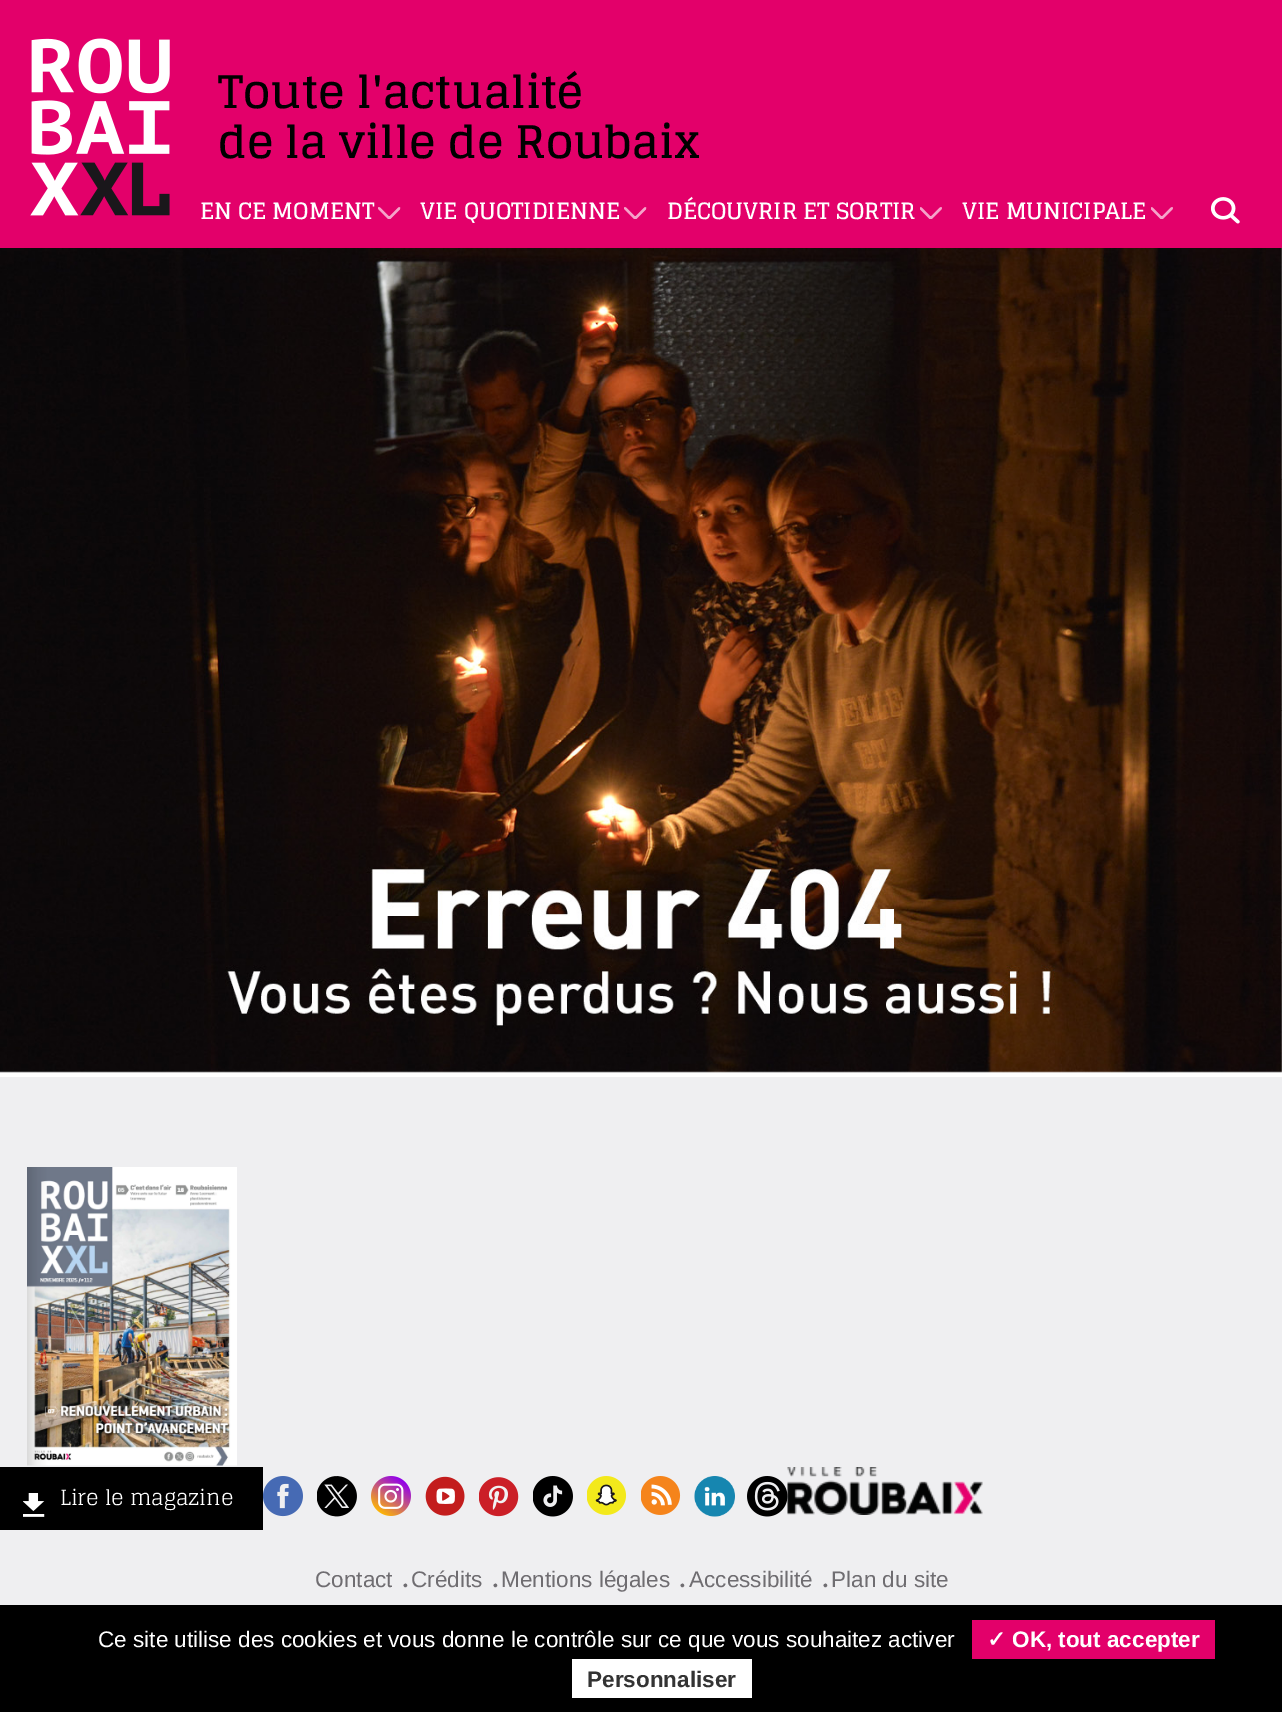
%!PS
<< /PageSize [1282 1712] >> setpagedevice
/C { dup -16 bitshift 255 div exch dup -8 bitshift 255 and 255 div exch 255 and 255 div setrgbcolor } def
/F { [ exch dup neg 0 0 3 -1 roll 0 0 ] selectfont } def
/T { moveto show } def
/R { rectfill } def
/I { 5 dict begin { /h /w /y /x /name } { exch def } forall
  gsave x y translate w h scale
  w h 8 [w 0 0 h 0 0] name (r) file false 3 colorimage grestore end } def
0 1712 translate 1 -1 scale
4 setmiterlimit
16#FFFFFF C
0 0 1282 1712 R
16#E3006A C
0 0 1282 248 R
(1.rgb) 30 38 140 178 I
/Glegoo-Bold 45 F
16#000000 C
(Toute l'actualité) 218 108 T
(de la ville de Roubaix) 218 158 T
/Glegoo-Bold 22.5 F
16#FFFFFF C
(EN CE MOMENT) 200 219 T
(2.rgb) 378 207 23 12 I
(VIE QUOTIDIENNE) 420 219 T
(2.rgb) 624 207 23 12 I
(DÉCOUVRIR ET SORTIR) 667 219 T
(3.rgb) 920 207 22 12 I
(VIE MUNICIPALE) 962 219 T
(3.rgb) 1151 207 22 12 I
(4.rgb) 1211 197 29 27 I
(5.rgb) 0 248 1282 825 I
16#EFEFF1 C
0 1077 1282 528 R
(6.rgb) 27 1167 210 299 I
16#000000 C
0 1467 263 63 R
(7.rgb) 23 1493 22 24 I
/Glegoo-Regular 21 F
16#FFFFFF C
(Lire le magazine) 60 1505 T
(8.rgb) 263 1476 40 41 I
(9.rgb) 317 1476 40 41 I
(10.rgb) 371 1476 40 40 I
(11.rgb) 425 1476 40 40 I
(12.rgb) 479 1477 40 40 I
(13.rgb) 533 1476 40 41 I
(14.rgb) 587 1476 40 39 I
(15.rgb) 641 1476 40 39 I
(16.rgb) 694 1476 41 41 I
(17.rgb) 747 1476 41 41 I
(18.rgb) 787 1467 196 48 I
/LiberationSans-Regular 22.5 F
16#6F6D71 C
(Contact) 315 1587 T
/LiberationSans-Regular 14 F
(•) 403 1590 T
/LiberationSans-Regular 22.5 F
(Crédits) 411 1587 T
/LiberationSans-Regular 14 F
(•) 493 1590 T
/LiberationSans-Regular 22.5 F
(Mentions légales) 501 1587 T
/LiberationSans-Regular 14 F
(•) 680 1590 T
/LiberationSans-Regular 22.5 F
(Accessibilité) 689 1587 T
/LiberationSans-Regular 14 F
(•) 823 1590 T
/LiberationSans-Regular 22.5 F
(Plan du site) 831 1587 T
16#000000 C
0 1605 1282 107 R
16#FFFFFF C
(Ce site utilise des cookies et vous donne le contrôle sur ce que vous souhaitez activer) 98 1647 T
16#E3006A C
972 1620 243 39 R
/DejaVuSans-Bold 22.5 F
16#FFFFFF C
(✓) 987 1647 T
/LiberationSans-Bold 22.5 F
(OK, tout accepter) 1012 1647 T
572 1659 180 39 R
16#333333 C
(Personnaliser) 587 1687 T
showpage
